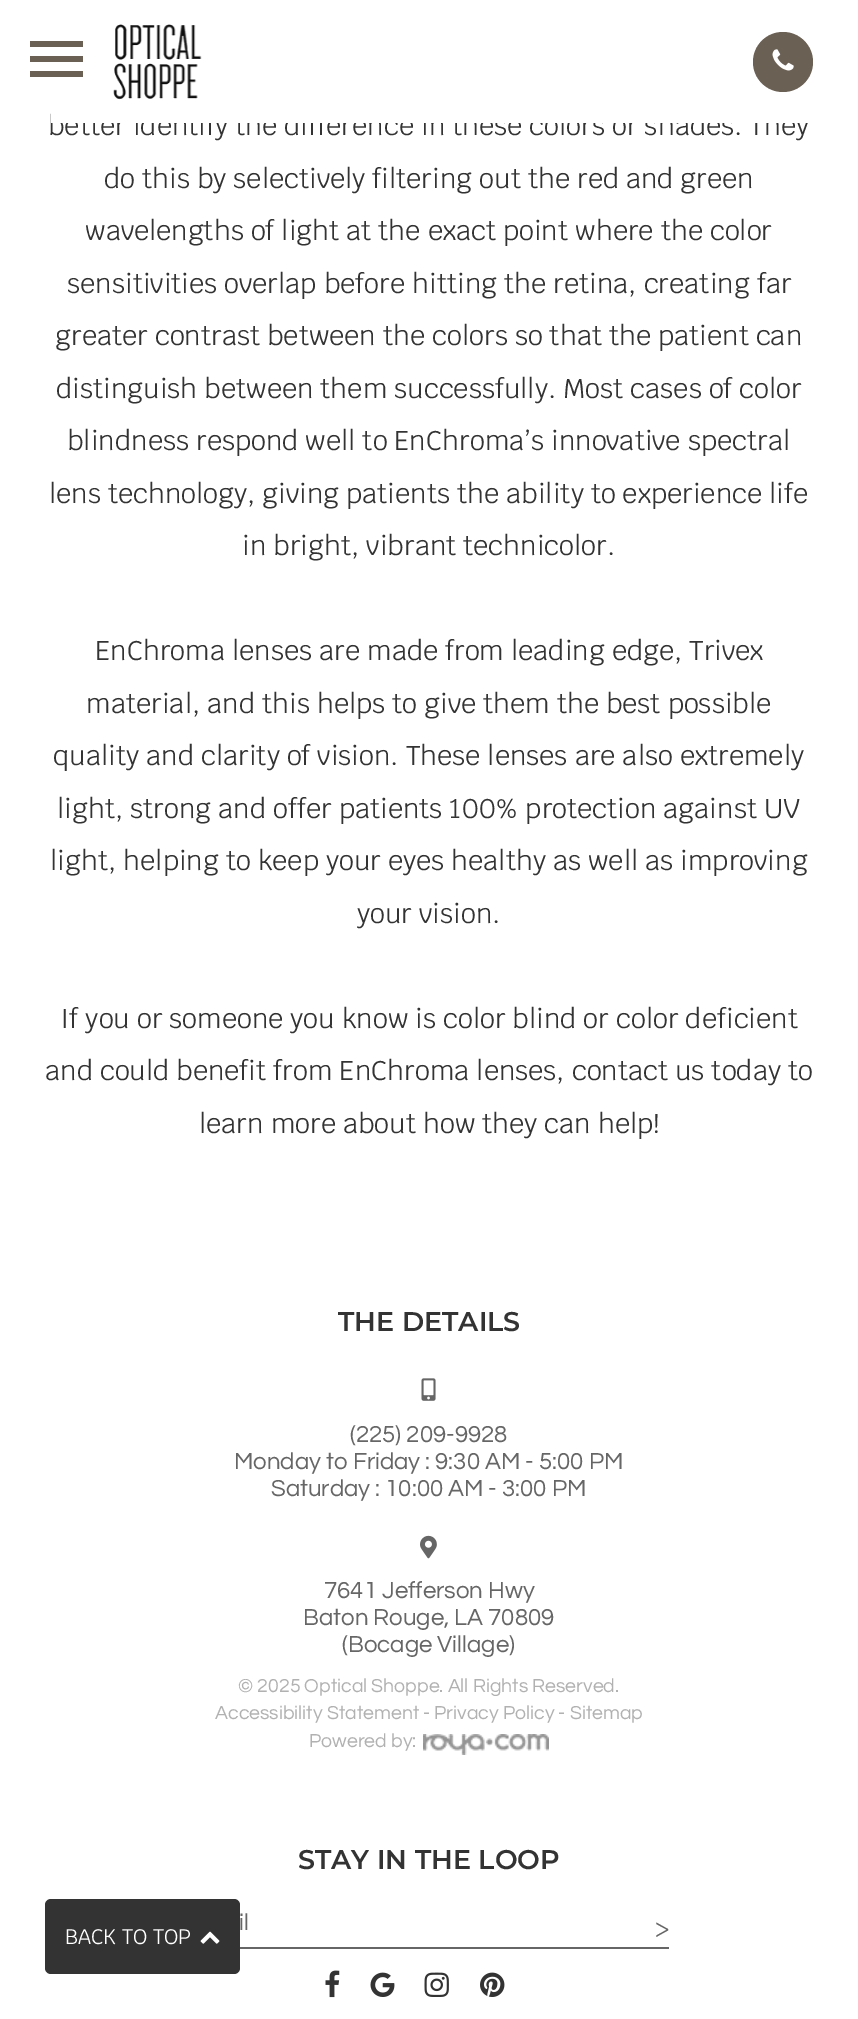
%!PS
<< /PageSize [858 2019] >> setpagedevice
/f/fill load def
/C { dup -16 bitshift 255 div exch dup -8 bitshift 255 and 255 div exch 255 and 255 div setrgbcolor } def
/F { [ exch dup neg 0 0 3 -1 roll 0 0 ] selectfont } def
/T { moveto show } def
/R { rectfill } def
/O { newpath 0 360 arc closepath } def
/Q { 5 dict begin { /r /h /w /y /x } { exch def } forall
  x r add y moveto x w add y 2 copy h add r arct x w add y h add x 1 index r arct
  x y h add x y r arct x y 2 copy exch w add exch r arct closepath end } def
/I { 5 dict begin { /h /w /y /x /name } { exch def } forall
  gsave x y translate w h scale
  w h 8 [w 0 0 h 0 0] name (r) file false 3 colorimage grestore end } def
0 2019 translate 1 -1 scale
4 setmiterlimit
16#FFFFFF C
0 0 858 2019 R
/Krub-Regular 27 F
16#333333 C
(better identify the difference in these colors or shades. They) 48 135 T
16#FFFFFF C
51 113 759 10 R
16#6B6054 C
30 71 53 6 R
30 41 53 6 R
30 56 53 6 R
(1.rgb) 113 24 89 76 I
783 62 30 O f
(2.rgb) 772 49 22 22 I
16#333333 C
(do this by selectively filtering out the red and green) 104 188 T
(wavelengths of light at the exact point where the color) 85 240 T
(sensitivities overlap before hitting the retina, creating far) 67 293 T
(greater contrast between the colors so that the patient can) 55 345 T
(distinguish between them successfully. Most cases of color) 56 398 T
(blindness respond well to EnChroma’s innovative spectral) 67 450 T
(lens technology, giving patients the ability to experience life) 49 503 T
(in bright, vibrant technicolor.) 242 555 T
(EnChroma lenses are made from leading edge, Trivex) 95 660 T
(material, and this helps to give them the best possible) 86 713 T
(quality and clarity of vision. These lenses are also extremely) 53 765 T
(light, strong and offer patients 100% protection against UV) 57 818 T
(light, helping to keep your eyes healthy as well as improving) 50 870 T
(your vision.) 357 923 T
(If you or someone you know is color blind or color deficient) 60 1028 T
(and could benefit from EnChroma lenses, contact us today to) 45 1080 T
(learn more about how they can help!) 199 1133 T
45 1899 195 75 6 Q f
/Krub-Regular 21 F
16#FFFFFF C
(BACK TO TOP) 65 1944 T
(3.rgb) 200 1931 20 13 I
/Montserrat-SemiBold 27 F
16#333333 C
(THE DETAILS) 338 1331 T
(4.rgb) 421 1378 15 23 I
/Questrial-Regular 24 F
16#666666 C
(\(225\) 209-9928) 350 1442 T
(Monday to Friday : 9:30 AM - 5:00 PM) 234 1469 T
(Saturday : 10:00 AM - 3:00 PM) 271 1496 T
(5.rgb) 420 1535 17 24 I
(7641 Jefferson Hwy) 324 1598 T
(Baton Rouge, LA 70809) 303 1625 T
(\(Bocage Village\)) 342 1652 T
/Questrial-Regular 19.5 F
16#B2B1B1 C
(© 2025 Optical Shoppe. All Rights Reserved.) 238 1692 T
(Accessibility Statement - Privacy Policy - Sitemap) 215 1719 T
(Powered by:) 309 1747 T
(6.rgb) 423 1734 126 21 I
/Montserrat-SemiBold 27 F
16#333333 C
(STAY IN THE LOOP) 298 1869 T
16#666666 C
240 1947 429 2 R
/Questrial-Regular 24 F
(il) 239 1930 T
/Krub-Regular 24 F
(>) 655 1937 T
(7.rgb) 325 1970 15 28 I
(8.rgb) 370 1972 25 25 I
(9.rgb) 424 1972 25 25 I
(10.rgb) 480 1972 25 25 I
showpage
